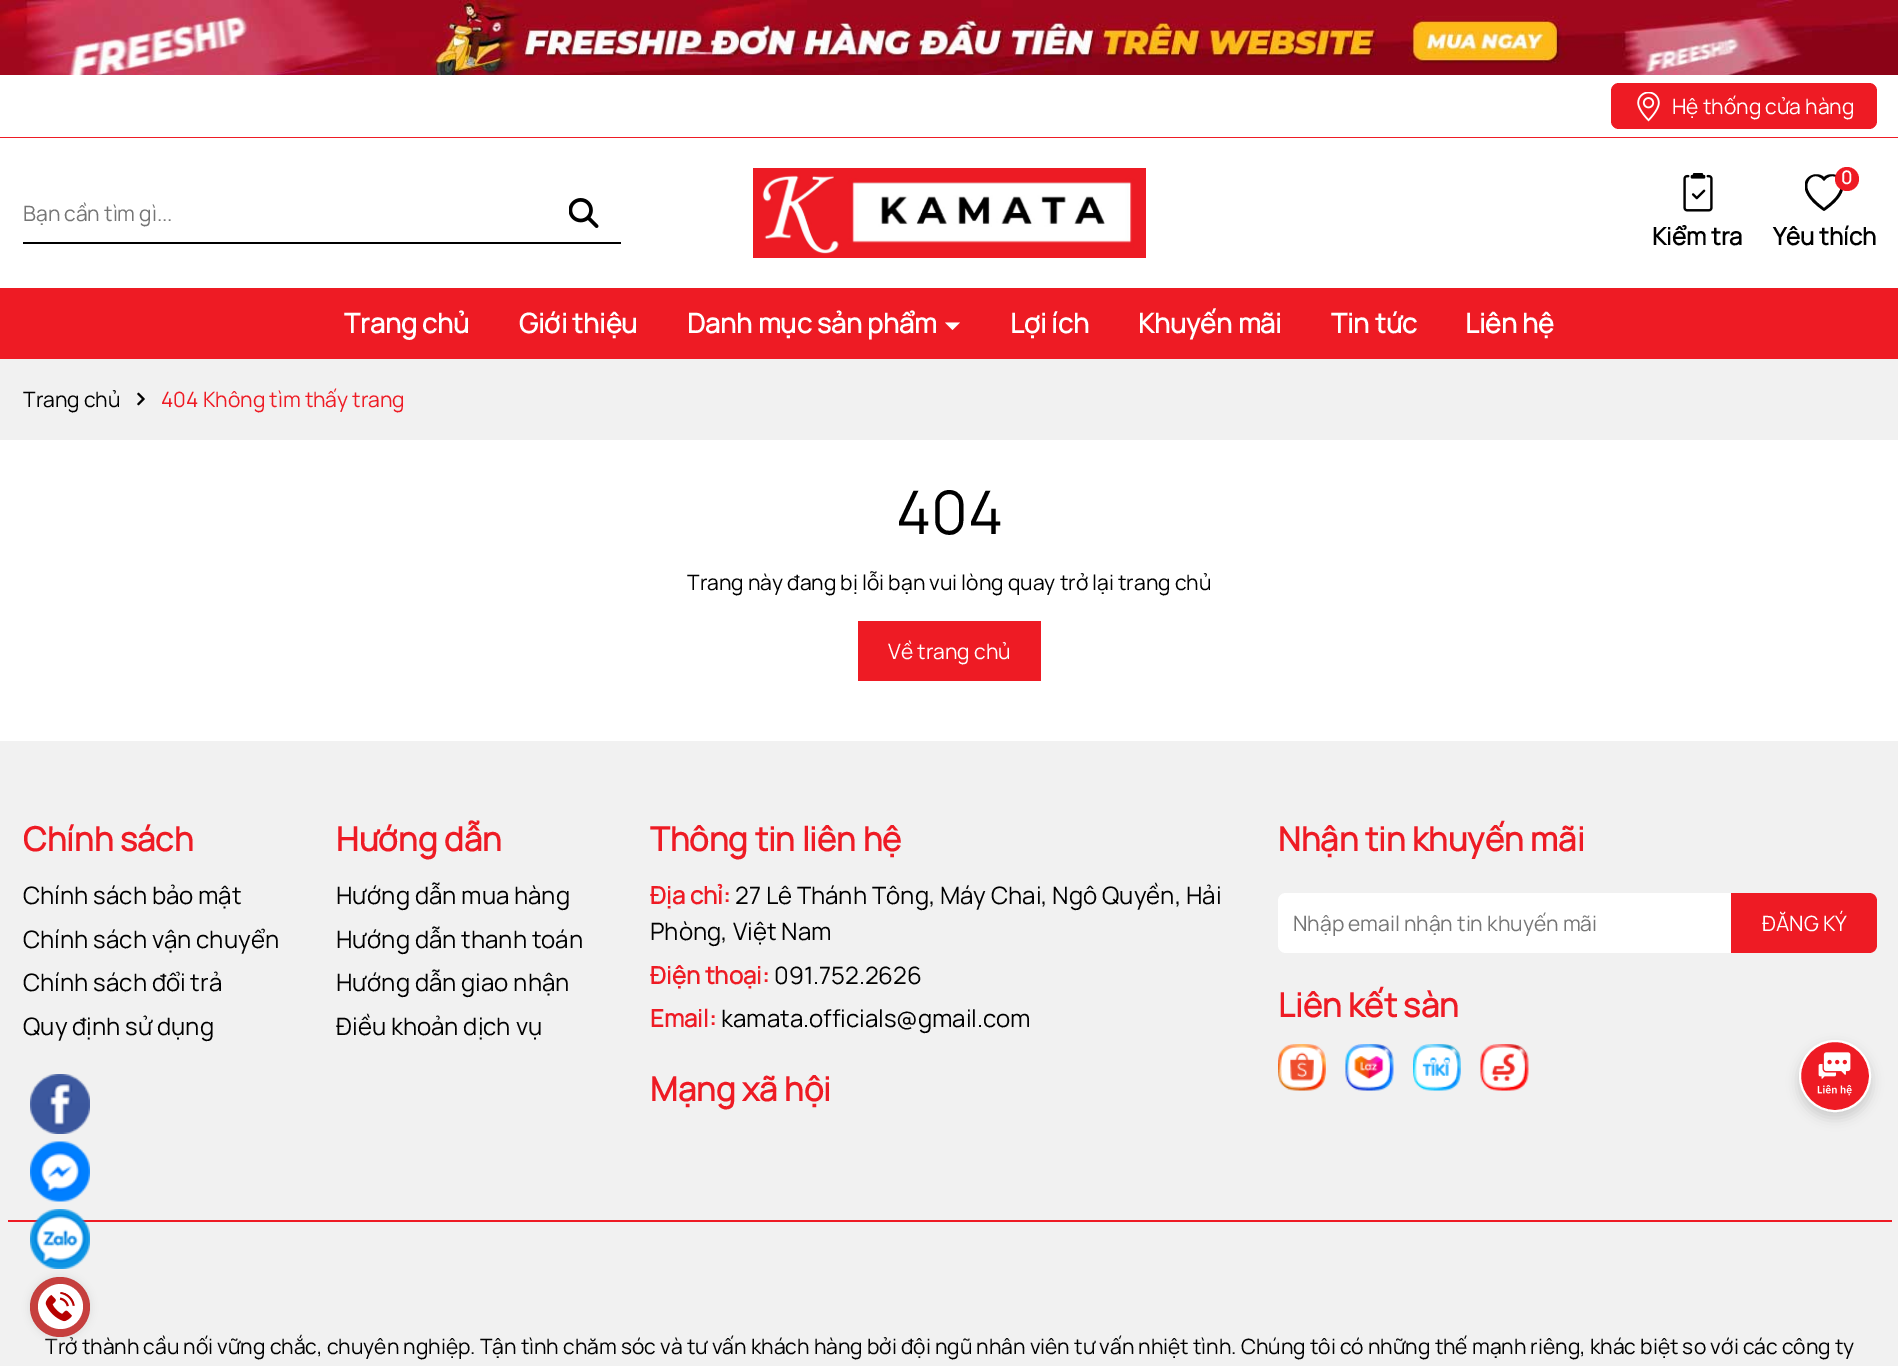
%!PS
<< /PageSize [1898 1366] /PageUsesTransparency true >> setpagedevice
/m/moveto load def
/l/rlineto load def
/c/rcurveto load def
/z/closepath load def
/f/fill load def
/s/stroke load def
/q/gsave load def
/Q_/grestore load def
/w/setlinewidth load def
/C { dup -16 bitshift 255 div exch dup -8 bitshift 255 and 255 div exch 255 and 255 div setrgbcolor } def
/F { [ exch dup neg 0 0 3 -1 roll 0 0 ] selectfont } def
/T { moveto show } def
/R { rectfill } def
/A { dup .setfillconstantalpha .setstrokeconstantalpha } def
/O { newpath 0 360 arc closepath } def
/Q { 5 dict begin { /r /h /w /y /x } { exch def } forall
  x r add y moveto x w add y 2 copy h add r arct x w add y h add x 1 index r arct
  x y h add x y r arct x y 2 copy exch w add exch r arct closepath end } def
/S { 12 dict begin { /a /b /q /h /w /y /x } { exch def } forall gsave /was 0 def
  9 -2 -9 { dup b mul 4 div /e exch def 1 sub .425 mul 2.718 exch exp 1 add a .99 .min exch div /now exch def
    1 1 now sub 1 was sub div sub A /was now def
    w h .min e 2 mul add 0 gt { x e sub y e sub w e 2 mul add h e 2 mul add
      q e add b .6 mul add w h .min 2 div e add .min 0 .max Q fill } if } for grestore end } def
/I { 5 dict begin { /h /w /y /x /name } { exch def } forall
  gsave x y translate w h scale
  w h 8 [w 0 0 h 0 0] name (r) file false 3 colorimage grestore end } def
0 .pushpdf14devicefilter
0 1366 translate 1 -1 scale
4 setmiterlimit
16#FFFFFF C
0 0 1898 1366 R
(1.rgb) 0 0 1898 75 I
16#EE1B24 C
0 137 1898 1 R
1611 83 266 46 8 Q f
(2.rgb) 1637 92 23 30 I
/Manrope-Regular 21 F
16#FFFFFF C
(Hệ thống cửa hàng) 1672 114 T
16#000000 C
23 242 598 2 R
16#757575 C
(Bạn cần tìm gì...) 23 221 T
(3.rgb) 569 198 30 30 I
(4.rgb) 753 168 393 90 I
(5.rgb) 1683 173 30 39 I
/Manrope-Bold 24 F
16#000000 C
(Kiểm tra) 1652 245 T
q
1805 174 39 39 rectclip
1824 181 m -3 -3 l -9 -6 -16 4 -13 12 c 3 8 10 13 16 18 c 6 -5 13 -10 16 -18 c 3 -8 -4 -18 -13 -12 c z 1824 211 m -37 -25 -12 -44 0 -34 c 12 -10 37 9 0 34 c z f
Q_
16#EE1B24 C
1847 179 12 O f
/Manrope-Bold 18 F
16#FFFFFF C
(0) 1841 184 T
/Manrope-Bold 24 F
16#000000 C
(Yêu thích) 1773 245 T
16#EE1B24 C
0 288 1898 71 R
/Manrope-Bold 27 F
16#FFFFFF C
(Trang chủ) 344 333 T
(Giới thiệu) 519 333 T
(Danh mục sản phẩm) 687 333 T
945 322.5 m 15 0 l -7.5 7.5 l z f
(Lợi ích) 1010 333 T
(Khuyến mãi) 1138 333 T
(Tin tức) 1331 333 T
(Liên hệ) 1465 333 T
16#F1F1F1 C
0 359 1898 81 R
/Manrope-Regular 21 F
16#000000 C
(Trang chủ) 23 407 T
(6.rgb) 137 392 8 14 I
16#EE1B24 C
(404 Không tìm thấy trang) 161 407 T
/Manrope-Regular 60 F
16#000000 C
(404) 896 534 T
/Manrope-Regular 21 F
(Trang này đang bị lỗi bạn vui lòng quay trở lại trang chủ) 687 590 T
16#EE1B24 C
858 621 183 60 R
16#FFFFFF C
(Về trang chủ) 888 659 T
16#F1F1F1 C
0 741 1898 625 R
/Manrope-Bold 33 F
16#EE1B24 C
(Chính sách) 23 851 T
/Manrope-Regular 24 F
16#000000 C
(Chính sách bảo mật) 23 904 T
(Chính sách vận chuyển) 23 948 T
(Chính sách đổi trả) 23 991 T
(Quy định sử dụng) 23 1035 T
/Manrope-Bold 33 F
16#EE1B24 C
(Hướng dẫn) 336 851 T
/Manrope-Regular 24 F
16#000000 C
(Hướng dẫn mua hàng) 336 904 T
(Hướng dẫn thanh toán) 336 948 T
(Hướng dẫn giao nhận) 336 991 T
(Điều khoản dịch vụ) 336 1035 T
/Manrope-Bold 33 F
16#EE1B24 C
(Thông tin liên hệ) 650 851 T
/Manrope-Bold 24 F
(Địa chỉ:) 650 904 T
/Manrope-Regular 24 F
16#000000 C
(27 Lê Thánh Tông, Máy Chai, Ngô Quyền, Hải) 735 904 T
(Phòng, Việt Nam) 650 940 T
/Manrope-Bold 24 F
16#EE1B24 C
(Điện thoại:) 650 984 T
/Manrope-Regular 24 F
16#000000 C
(091.752.2626) 774 984 T
/Manrope-Bold 24 F
16#EE1B24 C
(Email:) 650 1027 T
/Manrope-Regular 24 F
16#000000 C
(kamata.officials@gmail.com) 721 1027 T
/Manrope-Bold 33 F
16#EE1B24 C
(Mạng xã hội) 650 1101 T
(Nhận tin khuyến mãi) 1278 851 T
16#FFFFFF C
1278 893 599 60 8 Q f
/Manrope-Regular 21 F
16#757575 C
(Nhập email nhận tin khuyến mãi) 1293 931 T
16#EE1B24 C
1731 893 m 138 0 l 4.5 0 8 3.5 8 8 c 0 44 l 0 4.5 -3.5 8 -8 8 c -138 0 l z f
16#FFFFFF C
(ĐĂNG KÝ) 1762 931 T
/Manrope-Bold 33 F
16#EE1B24 C
(Liên kết sàn) 1278 1017 T
(7.rgb) 1278 1044 48 47 I
(8.rgb) 1345 1044 49 47 I
(9.rgb) 1413 1044 48 47 I
(10.rgb) 1480 1044 49 47 I
8 1220 1884 2 R
/Manrope-Regular 21 F
16#000000 C
(Trở thành cầu nối vững chắc, chuyên nghiệp. Tận tình chăm sóc và tư vấn khách hàng bởi đội ngũ nhân viên tư vấn nhiệt tình. Chúng tôi có những thế mạnh riêng, khác biệt so với các công ty) 45 1354 T
(11.rgb) 30 1074 60 60 I
(12.rgb) 30 1141 60 61 I
q
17 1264 m 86 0 l 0 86 l -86 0 l z 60 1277 m 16.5 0 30 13.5 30 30 c 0 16.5 -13.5 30 -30 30 c -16.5 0 -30 -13.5 -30 -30 c 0 -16.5 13.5 -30 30 -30 c z eoclip newpath
16#DDDDDD C
30 1277 60 60 30 4 1 S
Q_
(13.rgb) 30 1209 60 60 I
0.74 A
16#B70100 C
60 1307 30 O f
1 A
16#FFFFFF C
60.5 1306.5 22.5 O f
(14.rgb) 45 1292 30 30 I
16#000000 C
1799 1046 72 72 36 6 .15 S
16#EE1B24 C
1835 1076 35 O q f Q_
16#FFFFFF C
2 w
s
(15.rgb) 1817 1052 35 44 I
.poppdf14devicefilter showpage
